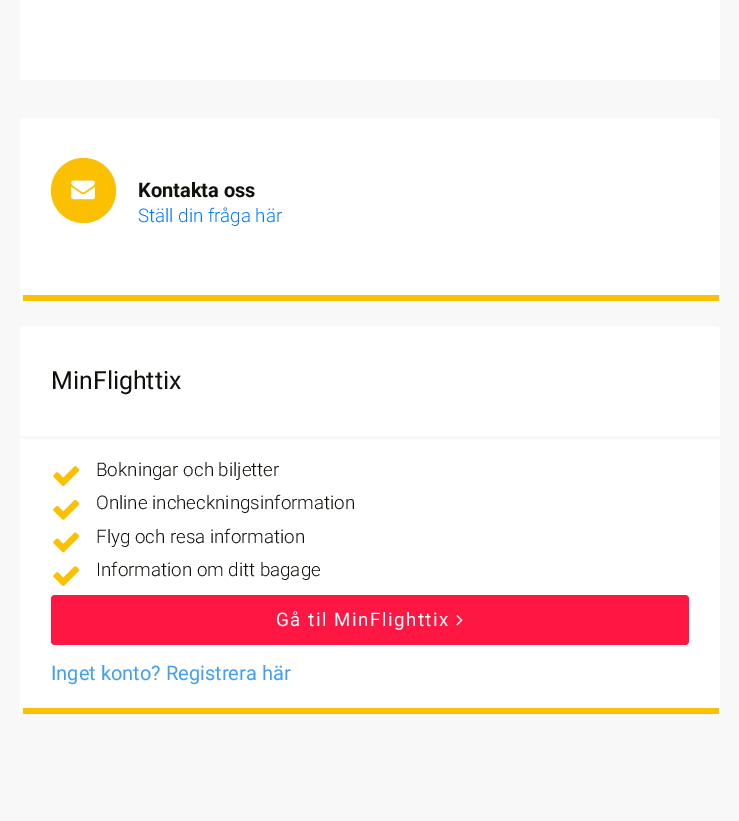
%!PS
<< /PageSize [739 821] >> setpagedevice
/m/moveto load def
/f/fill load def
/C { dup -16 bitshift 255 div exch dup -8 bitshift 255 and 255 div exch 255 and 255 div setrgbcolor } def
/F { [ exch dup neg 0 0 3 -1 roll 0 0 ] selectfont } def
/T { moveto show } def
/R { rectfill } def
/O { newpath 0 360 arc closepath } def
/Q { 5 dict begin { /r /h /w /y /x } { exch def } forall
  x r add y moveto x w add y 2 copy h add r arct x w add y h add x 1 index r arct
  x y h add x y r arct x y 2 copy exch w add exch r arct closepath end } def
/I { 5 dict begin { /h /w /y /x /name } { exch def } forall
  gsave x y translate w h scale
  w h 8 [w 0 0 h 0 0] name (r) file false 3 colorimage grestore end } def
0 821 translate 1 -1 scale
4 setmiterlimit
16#F8F8F8 C
0 0 739 821 R
16#FFFFFF C
20 0 700 80 R
20 118 700 183 4 Q f
16#FCC002 C
23 295 696 6 R
83.5 190.5 32.5 O f
(1.rgb) 71 180 24 20 I
/Roboto-Bold 20 F
16#12100B C
(Kontakta oss) 138 197 T
/Roboto-Light 18.75 F
16#007BFF C
(Ställ din fråga här) 138 222 T
16#FFFFFF C
20 326 700 388 4 Q f
16#FCC002 C
23 708 696 6 R
16#F8F8F8 C
20 436 700 3 R
/Roboto-Regular 25 F
16#12100B C
(MinFlighttix) 51 389 T
(2.rgb) 53 466 27 20 I
/Roboto-Light 18.75 F
(Bokningar och biljetter) 96 476 T
(3.rgb) 53 499 27 21 I
(Online incheckningsinformation) 96 509 T
(4.rgb) 53 532 27 21 I
(Flyg och resa information) 96 543 T
(2.rgb) 53 566 27 20 I
(Information om ditt bagage) 96 576 T
16#FF1744 C
51 595 638 50 4 Q f
/Roboto-Regular 18.75 F
16#FFFFFF C
276 626 m 1.5 0 (Gå til MinFlighttix) ashow
(5.rgb) 456 615 7 11 I
/Roboto-Regular 20 F
16#409FF4 C
(Inget konto? Registrera här) 51 680 T
showpage
